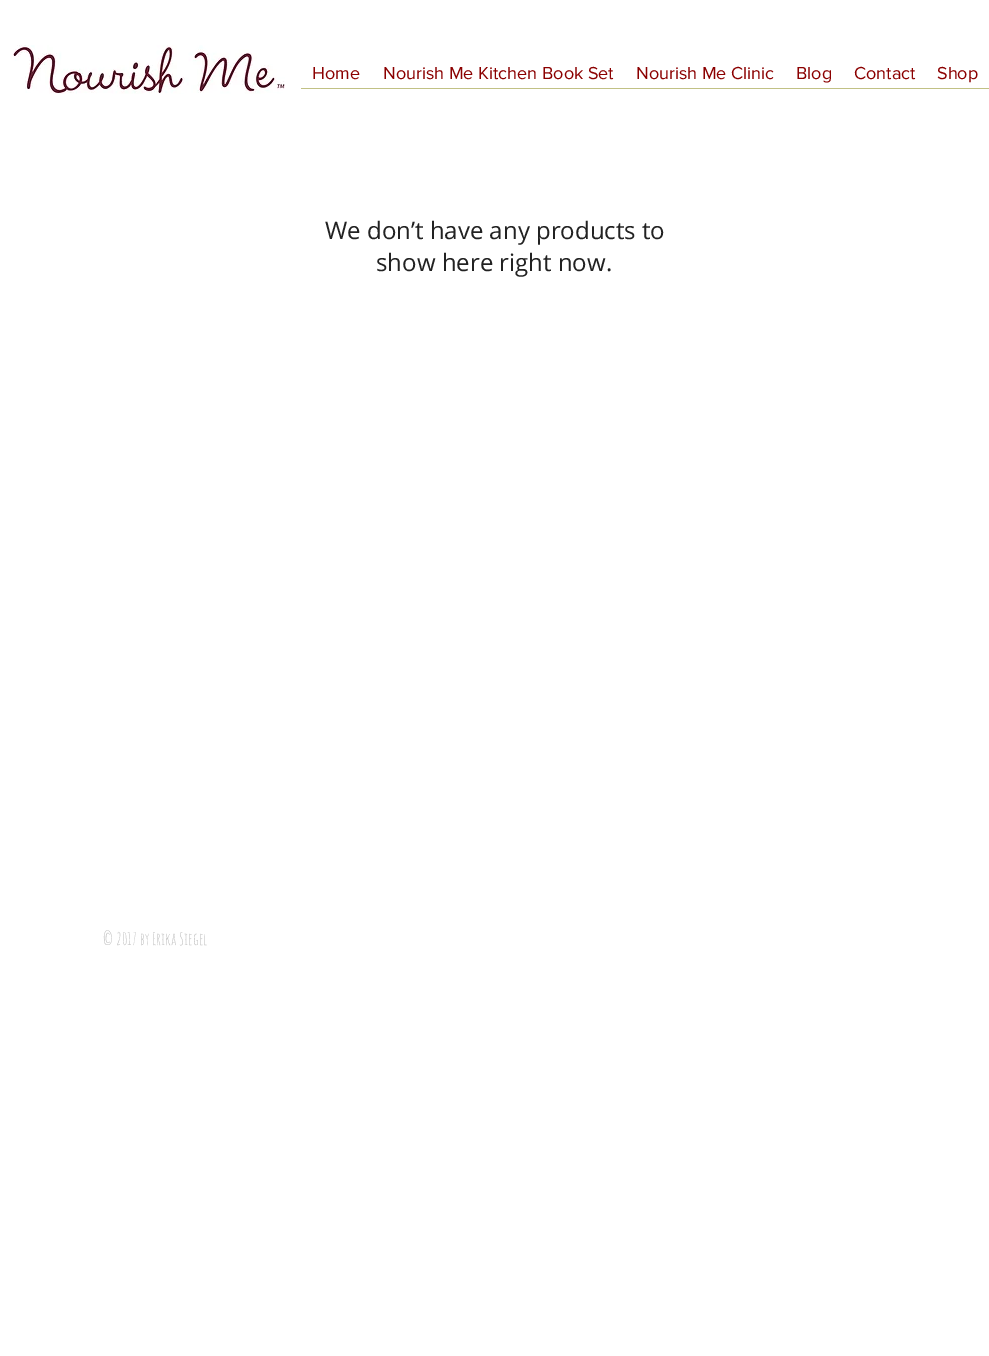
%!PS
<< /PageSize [989 1356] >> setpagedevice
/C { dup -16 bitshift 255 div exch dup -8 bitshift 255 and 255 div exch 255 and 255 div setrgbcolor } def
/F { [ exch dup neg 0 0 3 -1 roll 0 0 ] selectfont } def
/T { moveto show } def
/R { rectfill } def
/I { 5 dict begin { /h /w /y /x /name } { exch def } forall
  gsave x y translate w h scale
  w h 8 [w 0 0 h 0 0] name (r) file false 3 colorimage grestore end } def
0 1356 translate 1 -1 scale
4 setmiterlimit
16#FFFFFF C
0 0 989 1356 R
(1.rgb) 13 45 272 49 I
/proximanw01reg-Regular 18 F
16#8B0000 C
(Home) 312 79 T
(Nourish Me Kitchen Book Set) 383 79 T
(Nourish Me Clinic) 636 79 T
(Blog) 796 79 T
(Contact) 854 79 T
(Shop) 937 79 T
16#C1C185 C
301 88 688 1 R
/OpenSans-Regular 24 F
16#222222 C
(We don’t have any products to) 325 239 T
(show here right now.) 376 271 T
/AmaticSC-Regular 17 F
16#BEBEBE C
(© 2017 by Erika Siegel) 103 945 T
showpage
